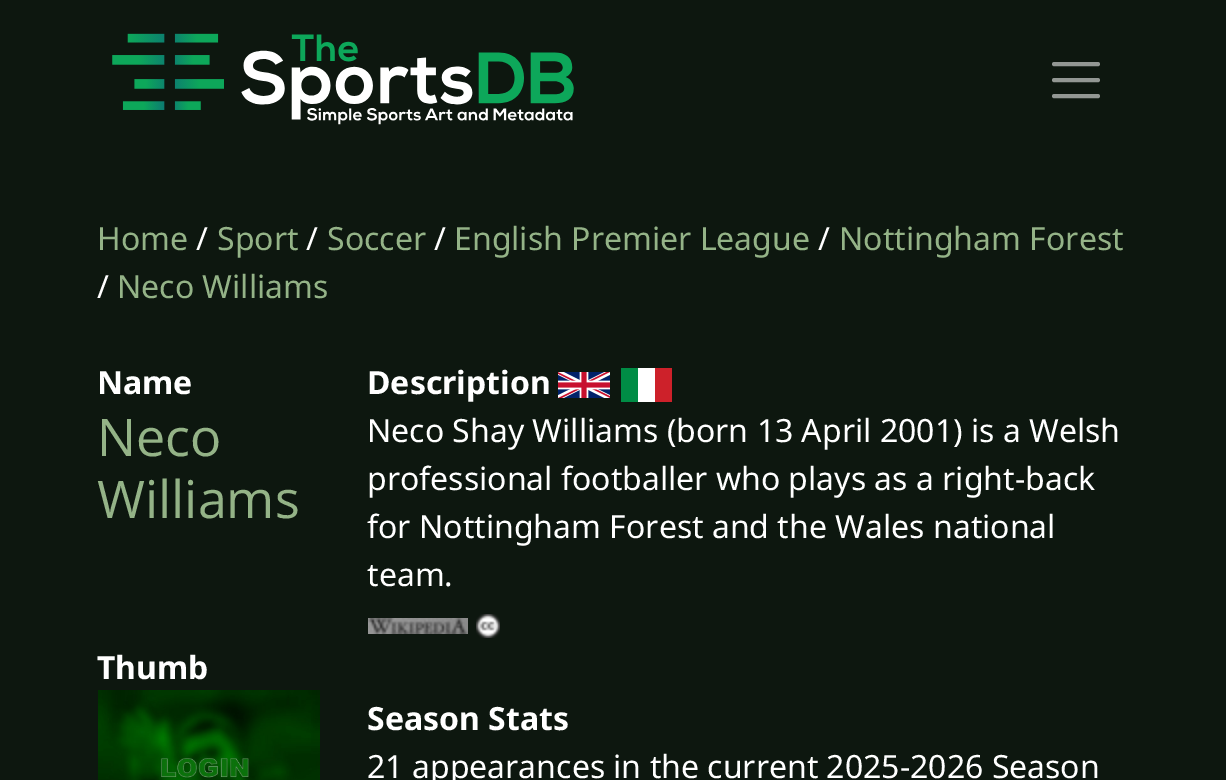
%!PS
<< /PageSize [1226 780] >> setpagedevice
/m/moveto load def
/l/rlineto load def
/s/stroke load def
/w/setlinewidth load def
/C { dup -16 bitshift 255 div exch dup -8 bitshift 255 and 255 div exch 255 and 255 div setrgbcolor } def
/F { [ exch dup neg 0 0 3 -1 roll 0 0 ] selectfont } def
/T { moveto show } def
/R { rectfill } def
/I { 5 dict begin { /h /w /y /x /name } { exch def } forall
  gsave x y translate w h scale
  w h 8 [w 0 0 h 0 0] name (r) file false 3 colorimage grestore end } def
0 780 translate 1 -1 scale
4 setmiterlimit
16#0D170F C
0 0 1226 780 R
(1.rgb) 112 33 462 92 I
16#929793 C
4 w
1 setlinecap
1054 64 m 44 0 l 1054 80 m 44 0 l 1054 96 m 44 0 l s
/NotoSans-Regular 32 F
16#94B387 C
(Home) 97 250 T
16#FFFFFF C
(/) 196 250 T
16#94B387 C
(Sport) 217 250 T
16#FFFFFF C
(/) 306 250 T
16#94B387 C
(Soccer) 327 250 T
16#FFFFFF C
(/) 434 250 T
16#94B387 C
(English Premier League) 454 250 T
16#FFFFFF C
(/) 818 250 T
16#94B387 C
(Nottingham Forest) 839 250 T
16#FFFFFF C
(/) 97 298 T
16#94B387 C
(Neco Williams) 117 298 T
/NotoSans-Bold 32 F
16#FFFFFF C
(Name) 97 394 T
/OpenSans-Regular 52 F
16#94B387 C
(Neco) 97 456 T
(Williams) 97 518 T
/NotoSans-Bold 32 F
16#FFFFFF C
(Thumb) 97 679 T
(2.rgb) 98 690 222 90 I
(Description) 367 394 T
(3.rgb) 558 372 52 26 I
16#008C45 C
621 368 17 34 R
16#FFFFFF C
638 368 17 34 R
16#CD212A C
655 368 17 34 R
/NotoSans-Regular 32 F
16#FFFFFF C
(Neco Shay Williams \(born 13 April 2001\) is a Welsh) 367 442 T
(professional footballer who plays as a right-back) 367 490 T
(for Nottingham Forest and the Wales national) 367 538 T
(team.) 367 586 T
(4.rgb) 368 618 100 16 I
(5.rgb) 476 614 24 24 I
/NotoSans-Bold 32 F
(Season Stats) 367 730 T
/NotoSans-Regular 32 F
(21 appearances in the current 2025-2026 Season) 367 778 T
showpage
